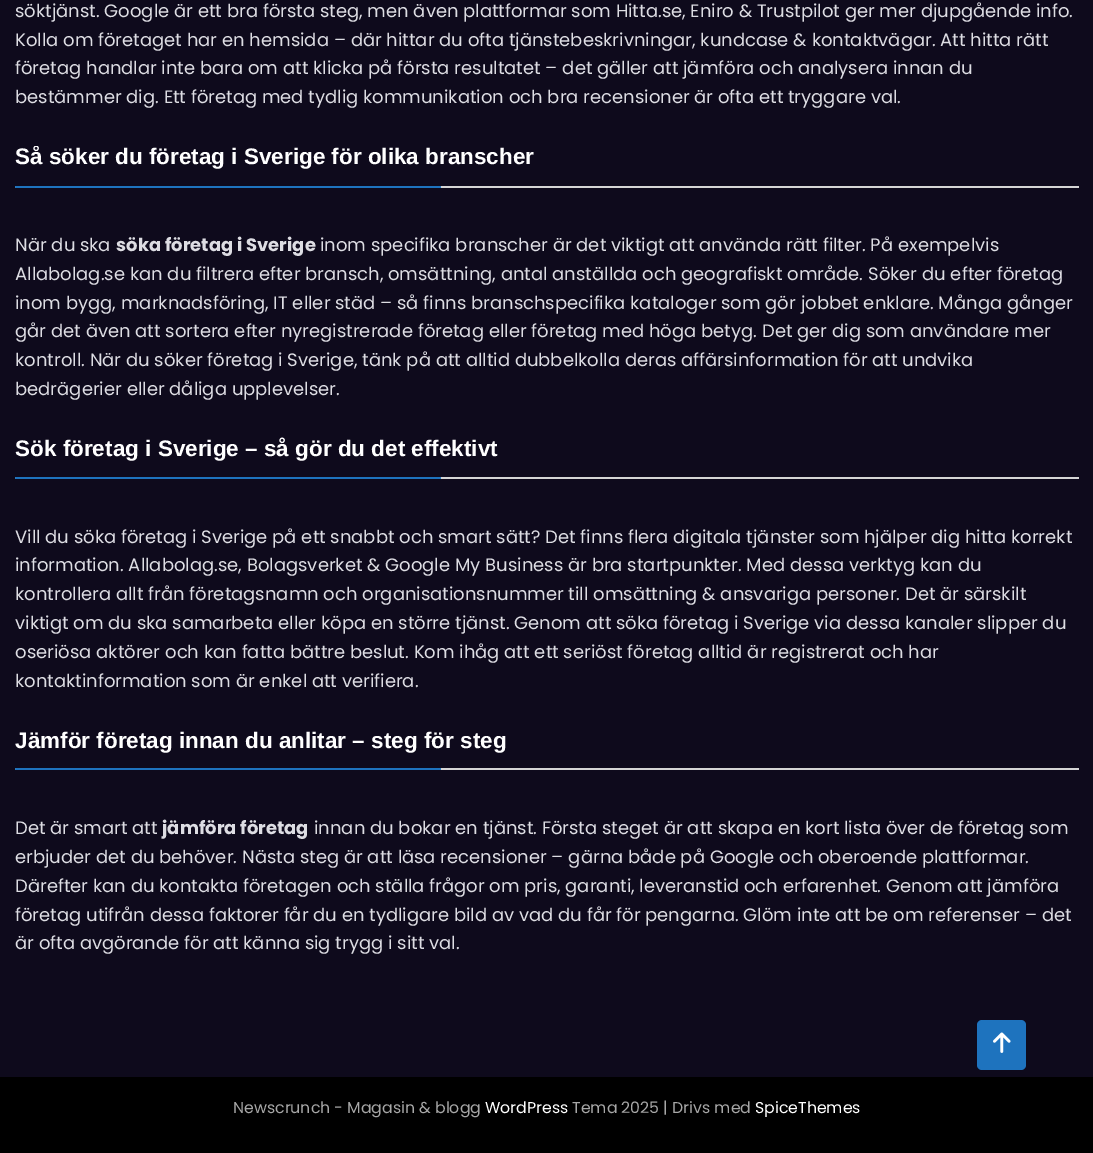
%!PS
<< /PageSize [1093 1153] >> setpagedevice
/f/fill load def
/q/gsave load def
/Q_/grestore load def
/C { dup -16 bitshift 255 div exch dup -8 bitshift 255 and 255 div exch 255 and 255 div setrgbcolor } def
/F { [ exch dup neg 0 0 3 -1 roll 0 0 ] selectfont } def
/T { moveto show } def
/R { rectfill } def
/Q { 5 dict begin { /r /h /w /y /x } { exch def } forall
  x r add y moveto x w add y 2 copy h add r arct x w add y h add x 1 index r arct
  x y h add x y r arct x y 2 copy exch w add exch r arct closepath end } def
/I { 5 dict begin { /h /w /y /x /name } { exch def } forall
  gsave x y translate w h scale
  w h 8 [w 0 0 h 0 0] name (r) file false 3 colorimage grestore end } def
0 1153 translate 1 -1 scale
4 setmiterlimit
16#0E0A1C C
0 0 1093 1153 R
/Poppins-Regular 18 F
16#DDDDE3 C
(söktjänst. Google är ett bra första steg, men även plattformar som Hitta.se, Eniro & Trustpilot ger mer djupgående info.) 15 17 T
(Kolla om företaget har en hemsida – där hittar du ofta tjänstebeskrivningar, kundcase & kontaktvägar. Att hitta rätt) 15 46 T
(företag handlar inte bara om att klicka på första resultatet – det gäller att jämföra och analysera innan du) 15 74 T
(bestämmer dig. Ett företag med tydlig kommunikation och bra recensioner är ofta ett tryggare val.) 15 103 T
16#D5D5D5 C
15 186 1064 2 R
q
15 146 1064 82 rectclip
/LiberationSans-Bold 22.5 F
16#FFFFFF C
(Så söker du företag i Sverige för olika branscher) 15 164 T
Q_
16#1E73BE C
15 186 426 2 1 Q f
16#DDDDE3 C
(När du ska) 15 251 T
/Poppins-Bold 18 F
(söka företag i Sverige) 116 251 T
/Poppins-Regular 18 F
(inom specifika branscher är det viktigt att använda rätt filter. På exempelvis) 320 251 T
(Allabolag.se kan du filtrera efter bransch, omsättning, antal anställda och geografiskt område. Söker du efter företag) 15 280 T
(inom bygg, marknadsföring, IT eller städ – så finns branschspecifika kataloger som gör jobbet enklare. Många gånger) 15 309 T
(går det även att sortera efter nyregistrerade företag eller företag med höga betyg. Det ger dig som användare mer) 15 337 T
(kontroll. När du söker företag i Sverige, tänk på att alltid dubbelkolla deras affärsinformation för att undvika) 15 366 T
(bedrägerier eller dåliga upplevelser.) 15 395 T
16#D5D5D5 C
15 477 1064 2 R
/LiberationSans-Bold 22.5 F
16#FFFFFF C
(Sök företag i Sverige – så gör du det effektivt) 15 456 T
16#1E73BE C
15 477 426 2 1 Q f
/Poppins-Regular 18 F
16#DDDDE3 C
(Vill du söka företag i Sverige på ett snabbt och smart sätt? Det finns flera digitala tjänster som hjälper dig hitta korrekt) 15 543 T
(information. Allabolag.se, Bolagsverket & Google My Business är bra startpunkter. Med dessa verktyg kan du) 15 571 T
(kontrollera allt från företagsnamn och organisationsnummer till omsättning & ansvariga personer. Det är särskilt) 15 600 T
(viktigt om du ska samarbeta eller köpa en större tjänst. Genom att söka företag i Sverige via dessa kanaler slipper du) 15 629 T
(oseriösa aktörer och kan fatta bättre beslut. Kom ihåg att ett seriöst företag alltid är registrerat och har) 15 658 T
(kontaktinformation som är enkel att verifiera.) 15 687 T
16#D5D5D5 C
15 768 1064 2 R
/LiberationSans-Bold 22.5 F
16#FFFFFF C
(Jämför företag innan du anlitar – steg för steg) 15 748 T
16#1E73BE C
15 768 426 2 1 Q f
/Poppins-Regular 18 F
16#DDDDE3 C
(Det är smart att) 15 834 T
/Poppins-Bold 18 F
(jämföra företag) 162 834 T
/Poppins-Regular 18 F
(innan du bokar en tjänst. Första steget är att skapa en kort lista över de företag som) 314 834 T
(erbjuder det du behöver. Nästa steg är att läsa recensioner – gärna både på Google och oberoende plattformar.) 15 863 T
(Därefter kan du kontakta företagen och ställa frågor om pris, garanti, leveranstid och erfarenhet. Genom att jämföra) 15 892 T
(företag utifrån dessa faktorer får du en tydligare bild av vad du får för pengarna. Glöm inte att be om referenser – det) 15 921 T
(är ofta avgörande för att känna sig trygg i sitt val.) 15 949 T
16#000000 C
0 1077 1093 76 R
/Poppins-Regular 15.75 F
16#A7A7A7 C
(Newscrunch - Magasin & blogg) 233 1113 T
16#FFFFFF C
(WordPress) 485 1113 T
16#A7A7A7 C
(Tema 2025 | Drivs med) 572 1113 T
16#FFFFFF C
(SpiceThemes) 755 1113 T
16#1E73BE C
977 1020 49 50 5 Q f
(1.rgb) 993 1032 18 21 I
showpage
